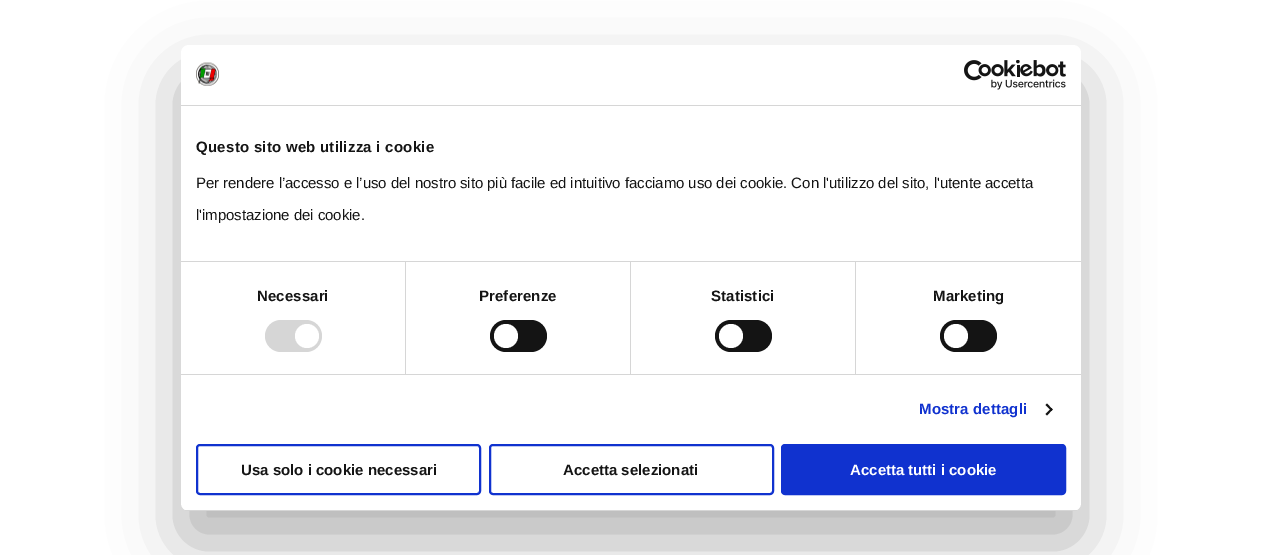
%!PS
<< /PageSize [1262 555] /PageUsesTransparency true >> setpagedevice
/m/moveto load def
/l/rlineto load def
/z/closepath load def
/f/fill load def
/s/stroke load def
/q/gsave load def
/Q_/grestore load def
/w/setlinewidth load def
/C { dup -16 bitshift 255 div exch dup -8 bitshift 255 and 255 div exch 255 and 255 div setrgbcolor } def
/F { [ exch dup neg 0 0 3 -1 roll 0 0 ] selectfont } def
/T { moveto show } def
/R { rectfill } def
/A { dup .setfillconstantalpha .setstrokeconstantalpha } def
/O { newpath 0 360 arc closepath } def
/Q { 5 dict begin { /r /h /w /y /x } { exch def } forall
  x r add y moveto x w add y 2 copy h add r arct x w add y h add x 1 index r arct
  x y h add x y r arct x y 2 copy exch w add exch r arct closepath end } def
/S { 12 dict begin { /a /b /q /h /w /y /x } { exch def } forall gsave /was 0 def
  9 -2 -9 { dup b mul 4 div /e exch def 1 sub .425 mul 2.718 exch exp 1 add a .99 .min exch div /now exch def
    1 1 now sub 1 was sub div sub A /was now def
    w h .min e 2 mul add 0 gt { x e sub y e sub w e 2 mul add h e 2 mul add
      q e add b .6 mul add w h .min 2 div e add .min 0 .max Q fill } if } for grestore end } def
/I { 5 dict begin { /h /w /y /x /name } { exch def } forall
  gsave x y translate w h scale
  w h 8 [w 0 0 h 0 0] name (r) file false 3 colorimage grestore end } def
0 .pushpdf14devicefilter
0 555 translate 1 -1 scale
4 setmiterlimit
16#FFFFFF C
0 0 1262 555 R
16#000000 C
181 77 900 466 8 34 .3 S
16#FFFFFF C
181 45 900 466 8 Q f
16#D6D6D6 C
181 105 900 1 R
(1.rgb) 196 62 23 24 I
(2.rgb) 964 60 102 30 I
181 261 900 1 R
/LiberationSans-Bold 15 F
16#141414 C
196 152 m .25 0 (Questo sito web utilizza i cookie) ashow
/LiberationSans-Regular 15 F
196 188 m -.07 0 (Per rendere l’accesso e l’uso del nostro sito più facile ed intuitivo facciamo uso dei cookie. Con l'utilizzo del sito, l'utente accetta) ashow
196 220 m -.07 0 (l'impostazione dei cookie.) ashow
16#D6D6D6 C
181 374 900 1 R
405 262 1 112 R
/LiberationSans-Bold 15 F
16#141414 C
257 301 m .1 0 (Necessari) ashow
16#D6D6D6 C
265 320 57 32 16 Q f
16#FFFFFF C
307 336 12 O f
16#D6D6D6 C
630 262 1 112 R
16#141414 C
479 301 m .1 0 (Preferenze) ashow
490 320 57 32 16 Q f
16#FFFFFF C
506 336 12 O f
16#D6D6D6 C
855 262 1 112 R
16#141414 C
711 301 m .1 0 (Statistici) ashow
715 320 57 32 16 Q f
16#FFFFFF C
731 336 12 O f
16#141414 C
933 301 m .1 0 (Marketing) ashow
940 320 57 32 16 Q f
16#FFFFFF C
956 336 12 O f
16#1032CF C
919 414 m .1 0 (Mostra dettagli) ashow
16#141414 C
1047 403.5 m 5.5 6 l -1 1.5 l -6 -6 l z f
1051.5 408 m 1 1.5 l -5.5 6 l -1.5 -1.5 l z f
q
181 45 900 466 8 Q clip newpath
16#D6D6D6 C
181 510 900 1 R
Q_
16#1032CF C
2 w
197 445 283 49 3 Q s
16#141414 C
(Usa solo i cookie necessari) 241 475 T
16#1032CF C
490 445 283 49 3 Q s
16#141414 C
(Accetta selezionati) 563 475 T
16#1032CF C
782 445 283 49 3 Q q f Q_
s
16#FFFFFF C
(Accetta tutti i cookie) 850 475 T
.poppdf14devicefilter showpage
